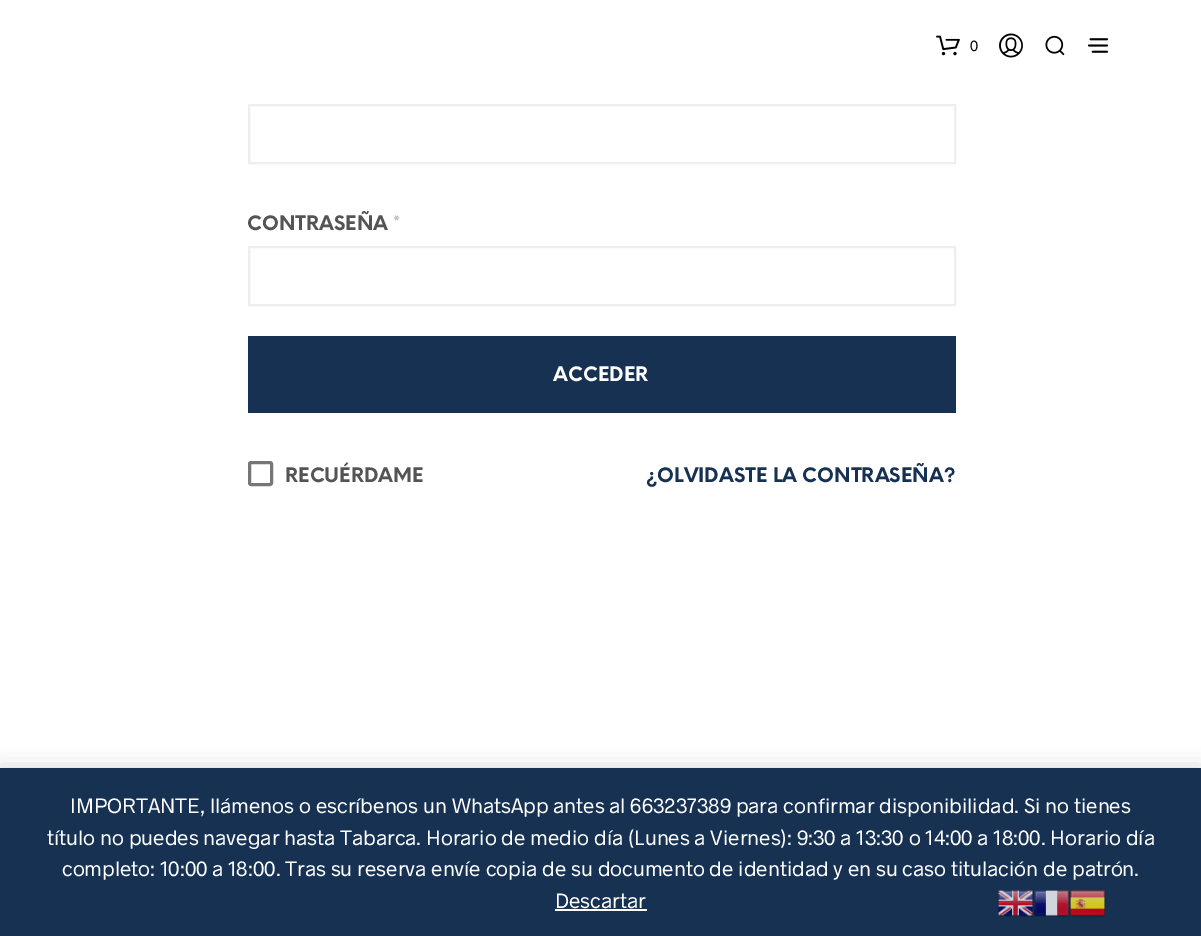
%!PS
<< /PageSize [1201 936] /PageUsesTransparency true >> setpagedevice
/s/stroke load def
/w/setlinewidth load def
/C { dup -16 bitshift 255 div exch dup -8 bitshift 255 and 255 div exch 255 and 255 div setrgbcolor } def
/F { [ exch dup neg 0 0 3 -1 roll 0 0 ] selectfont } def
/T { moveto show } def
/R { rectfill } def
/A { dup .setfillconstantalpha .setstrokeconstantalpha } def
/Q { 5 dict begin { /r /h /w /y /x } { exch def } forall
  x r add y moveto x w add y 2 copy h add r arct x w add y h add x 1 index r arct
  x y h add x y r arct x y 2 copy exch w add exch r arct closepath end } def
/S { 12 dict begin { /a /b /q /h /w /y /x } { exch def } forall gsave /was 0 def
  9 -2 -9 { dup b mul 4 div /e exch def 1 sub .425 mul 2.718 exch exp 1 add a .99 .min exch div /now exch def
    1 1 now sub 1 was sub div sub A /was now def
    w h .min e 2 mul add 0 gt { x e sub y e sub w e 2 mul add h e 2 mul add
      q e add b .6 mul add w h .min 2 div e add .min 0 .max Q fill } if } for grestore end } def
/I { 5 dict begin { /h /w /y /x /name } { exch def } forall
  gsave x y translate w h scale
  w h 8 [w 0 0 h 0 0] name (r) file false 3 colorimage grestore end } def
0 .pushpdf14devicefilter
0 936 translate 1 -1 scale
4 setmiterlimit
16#FFFFFF C
0 0 1201 936 R
(1.rgb) 936 35 24 21 I
/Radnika-Regular 15 F
16#000000 C
(0) 970 51 T
(2.rgb) 999 33 24 25 I
(3.rgb) 1045 35 20 21 I
(4.rgb) 1087 38 22 15 I
16#EEEEEE C
2 w
249 105 706 58 rectstroke
/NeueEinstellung-Bold 19.5 F
16#545454 C
(CONTRASEÑA) 247 230 T
16#BBBBBB C
(*) 393 230 T
16#EEEEEE C
249 247 706 58 rectstroke
16#163152 C
248 336 708 77 R
16#FFFFFF C
(ACCEDER) 553 381 T
16#767676 C
3 w
249.5 462.5 22 22 1.5 Q s
16#545454 C
(RECUÉRDAME) 285 482 T
16#163152 C
(¿OLVIDASTE LA CONTRASEÑA?) 646 482 T
16#000000 C
0 770 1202 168 0 10.5 .2 S
16#163152 C
0 768 1201 168 R
/Radnika-Regular 21 F
16#FFFFFF C
(IMPORTANTE, llámenos o escríbenos un WhatsApp antes al 663237389 para confirmar disponibilidad. Si no tienes) 70 813 T
(título no puedes navegar hasta Tabarca. Horario de medio día \(Lunes a Viernes\): 9:30 a 13:30 o 14:00 a 18:00. Horario día) 47 845 T
(completo: 10:00 a 18:00. Tras su reserva envíe copia de su documento de identidad y en su caso titulación de patrón.) 62 876 T
(Descartar) 555 908 T
555 909 92 2 R
(5.rgb) 997 890 37 27 I
(6.rgb) 1033 890 37 27 I
(7.rgb) 1069 890 37 27 I
.poppdf14devicefilter showpage
